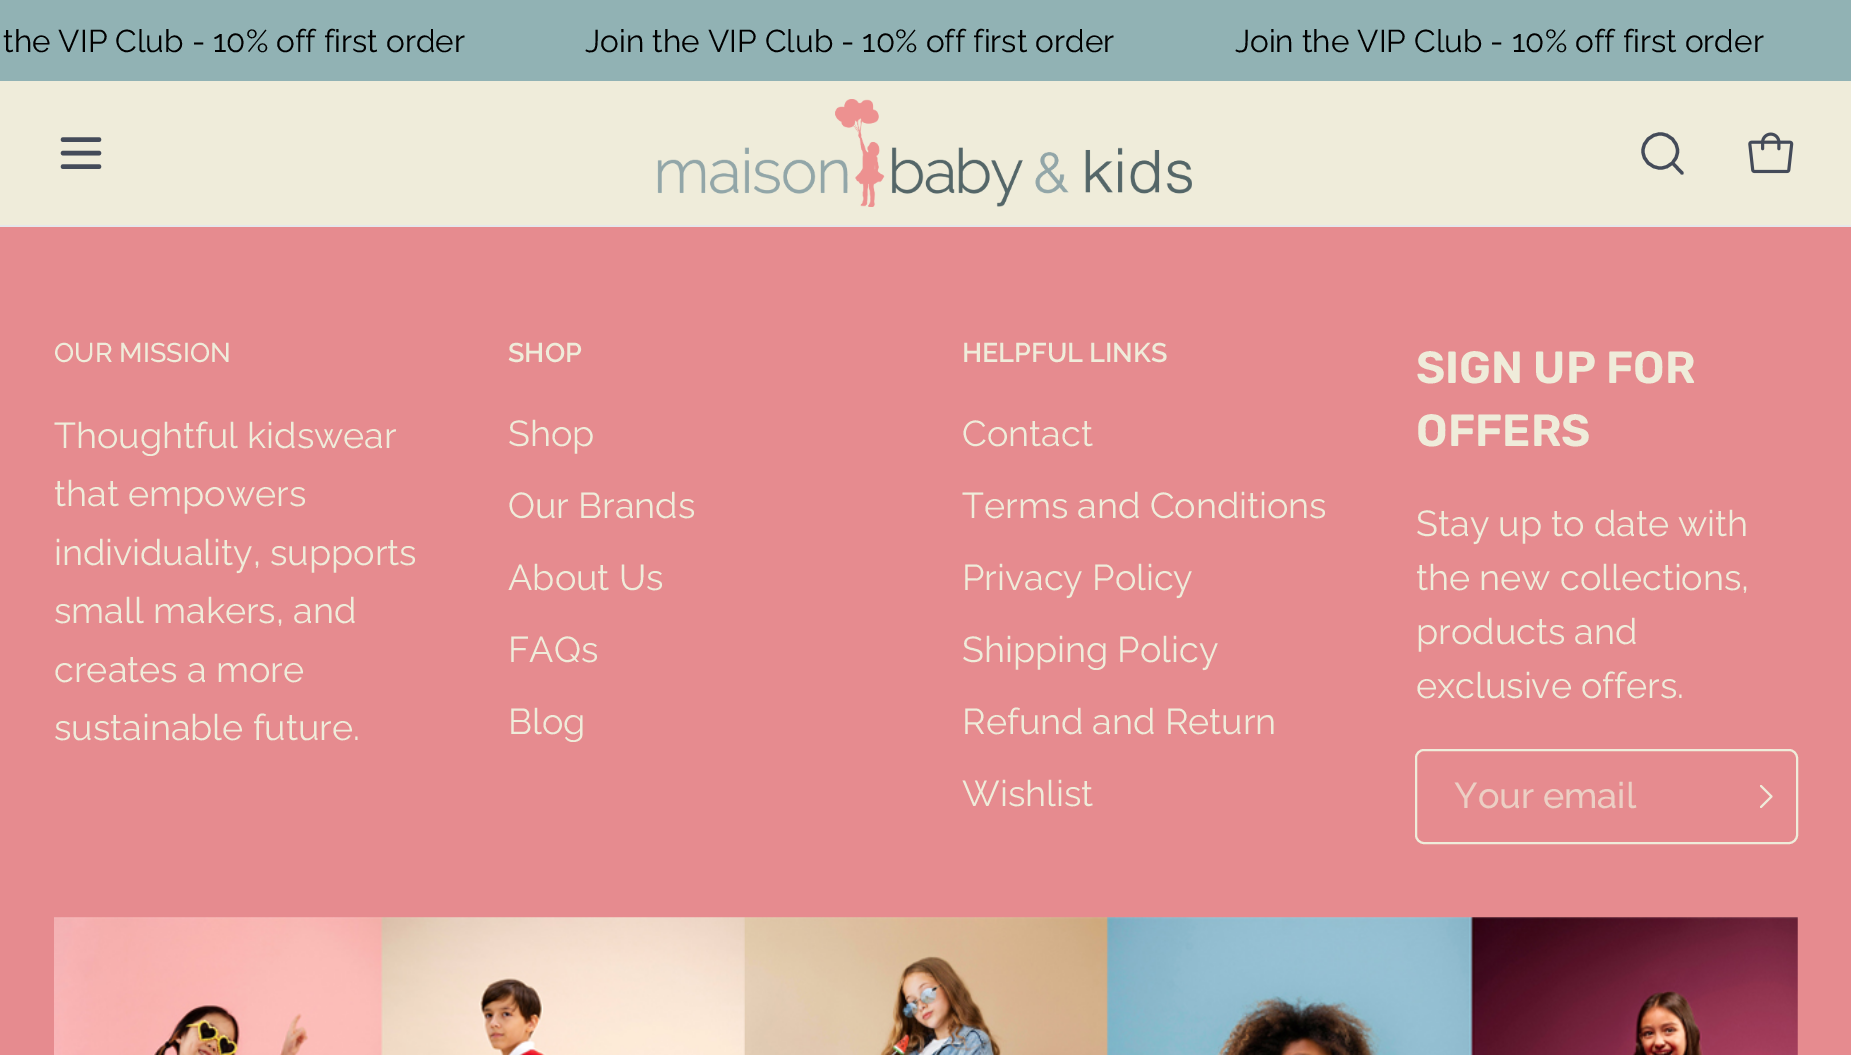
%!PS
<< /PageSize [1851 1055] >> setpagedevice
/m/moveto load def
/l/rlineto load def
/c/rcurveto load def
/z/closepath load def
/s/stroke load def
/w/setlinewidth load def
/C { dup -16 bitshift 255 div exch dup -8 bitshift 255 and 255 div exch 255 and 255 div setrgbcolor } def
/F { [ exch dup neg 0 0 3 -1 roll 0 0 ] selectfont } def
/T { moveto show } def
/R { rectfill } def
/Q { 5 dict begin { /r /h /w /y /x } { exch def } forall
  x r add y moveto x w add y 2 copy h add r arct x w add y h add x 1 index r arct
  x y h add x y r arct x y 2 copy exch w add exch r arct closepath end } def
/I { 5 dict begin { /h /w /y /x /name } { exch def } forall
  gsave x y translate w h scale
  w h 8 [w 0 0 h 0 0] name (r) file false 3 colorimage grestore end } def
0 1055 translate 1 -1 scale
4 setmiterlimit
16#E68B8F C
0 0 1851 1055 R
16#EFECDA C
0 81 1851 144 R
16#E5E7EB C
0 225 1851 2 R
16#91B2B4 C
0 0 1851 81 R
/Raleway-Regular 31.5 F
16#000000 C
(the VIP Club - 10% off first order               Join the VIP Club - 10% off first order               Join the VIP Club - 10% off first order) 3 52 T
16#444B59 C
4.5 w
1 setlinecap
1 setlinejoin
63 139.5 m 36 0 l 63 153 m 36 0 l 63 166.5 m 36 0 l s
(1.rgb) 657 99 535 108 I
3.2 w
1672.5 163 m 9.5 10 l 1660.5 168 m 9 0 17 -7.5 17 -17 c 0 -9.5 -8 -17 -17 -17 c -9.5 0 -17.5 7.5 -17.5 17 c 0 9.5 8 17 17.5 17 c z s
(2.rgb) 1748 132 46 42 I
/Raleway-Medium 27 F
16#EFECDA C
(OUR MISSION) 54 362 T
/Raleway-Regular 36 F
(Thoughtful kidswear) 54 448 T
(that empowers) 54 506 T
(individuality, supports) 54 565 T
(small makers, and) 54 623 T
(creates a more) 54 682 T
(sustainable future.) 54 740 T
/Raleway-SemiBold 27 F
(SHOP) 508 362 T
/Raleway-Regular 36 F
(Shop) 508 446 T
(Our Brands) 508 518 T
(About Us) 508 590 T
(FAQs) 508 662 T
(Blog) 508 734 T
/Raleway-SemiBold 27 F
(HELPFUL LINKS) 962 362 T
/Raleway-Regular 36 F
(Contact) 962 446 T
(Terms and Conditions) 962 518 T
(Privacy Policy) 962 590 T
(Shipping Policy) 962 662 T
(Refund and Return) 962 734 T
(Wishlist) 962 806 T
/Rubik-SemiBold 45 F
(SIGN UP FOR) 1416 383 T
(OFFERS) 1416 446 T
/Raleway-Regular 36 F
(Stay up to date with) 1416 536 T
(the new collections,) 1416 590 T
(products and) 1416 644 T
(exclusive offers.) 1416 698 T
2 w
0 setlinecap
0 setlinejoin
1416 750 381 93 8 Q s
/Raleway-Medium 36 F
16#ECCFC4 C
(Your email) 1454 808 T
16#EFECDA C
2.1 w
1 setlinecap
1 setlinejoin
1761 786 m 10.5 10.5 l -10.5 10.5 l s
(3.rgb) 54 917 1744 138 I
showpage
